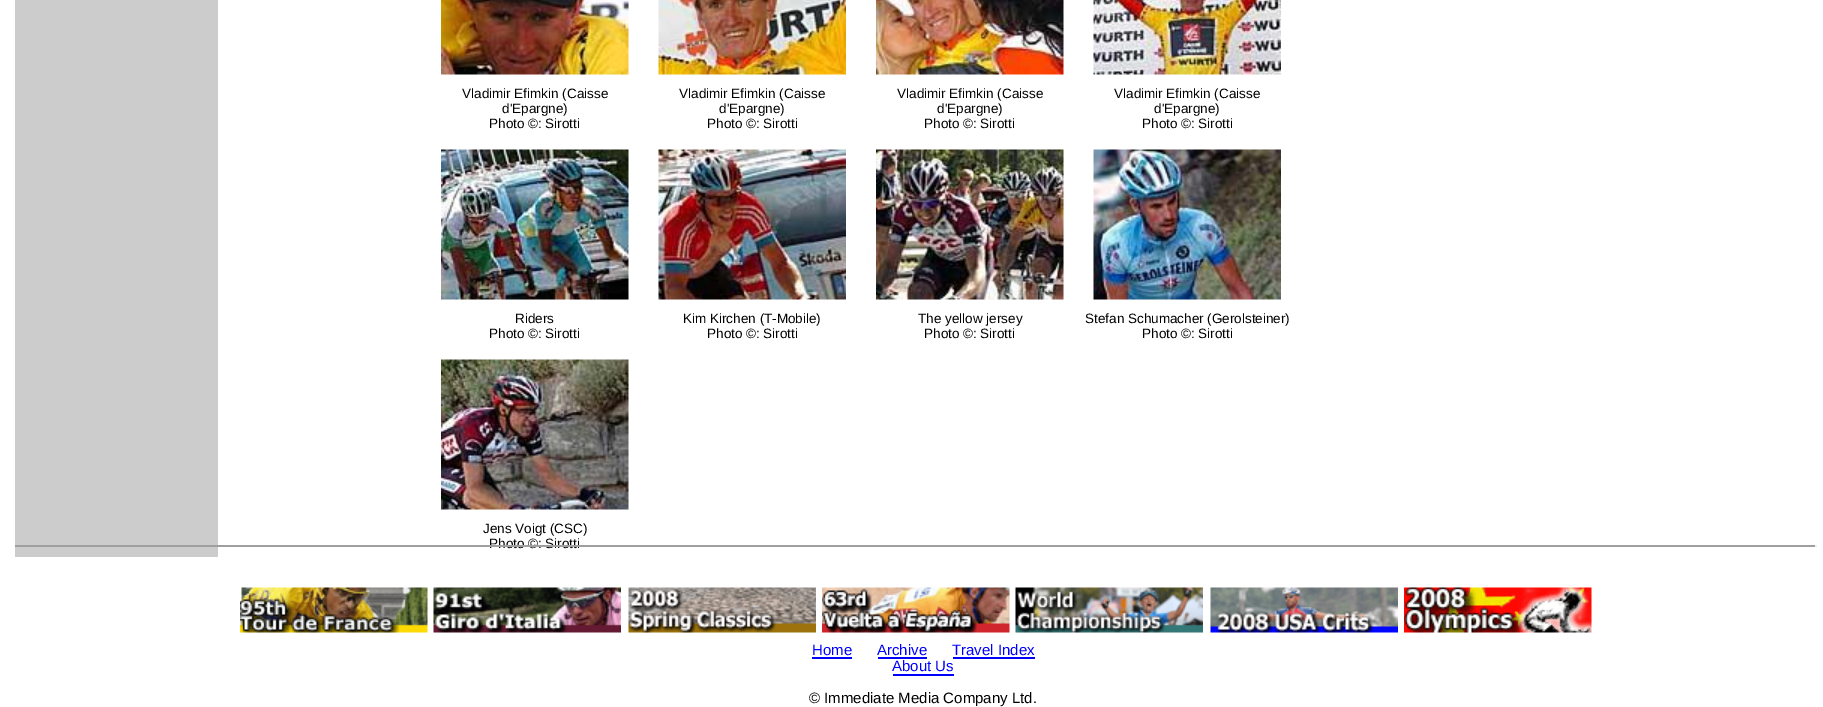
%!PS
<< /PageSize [1823 707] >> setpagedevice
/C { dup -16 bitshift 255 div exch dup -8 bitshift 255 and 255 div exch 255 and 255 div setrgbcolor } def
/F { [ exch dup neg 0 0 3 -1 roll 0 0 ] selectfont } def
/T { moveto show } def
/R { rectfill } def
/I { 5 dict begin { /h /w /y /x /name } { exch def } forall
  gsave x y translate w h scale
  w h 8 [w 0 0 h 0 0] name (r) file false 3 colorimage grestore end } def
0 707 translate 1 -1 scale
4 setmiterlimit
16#FFFFFF C
0 0 1823 707 R
16#CCCCCC C
15 0 203 557 R
(1.rgb) 441 0 188 75 I
/LiberationSans-Regular 13.5 F
16#000000 C
(Vladimir Efimkin \(Caisse) 462 98 T
(d'Epargne\)) 502 113 T
(Photo ©: Sirotti) 489 128 T
(2.rgb) 658 0 188 75 I
(Vladimir Efimkin \(Caisse) 679 98 T
(d'Epargne\)) 719 113 T
(Photo ©: Sirotti) 707 128 T
(3.rgb) 876 0 188 75 I
(Vladimir Efimkin \(Caisse) 897 98 T
(d'Epargne\)) 937 113 T
(Photo ©: Sirotti) 924 128 T
(4.rgb) 1093 0 188 75 I
(Vladimir Efimkin \(Caisse) 1114 98 T
(d'Epargne\)) 1154 113 T
(Photo ©: Sirotti) 1142 128 T
(5.rgb) 441 149 188 151 I
(Riders) 515 323 T
(Photo ©: Sirotti) 489 338 T
(6.rgb) 658 149 188 151 I
(Kim Kirchen \(T-Mobile\)) 683 323 T
(Photo ©: Sirotti) 707 338 T
(7.rgb) 876 149 188 151 I
(The yellow jersey) 918 323 T
(Photo ©: Sirotti) 924 338 T
(8.rgb) 1093 149 188 151 I
(Stefan Schumacher \(Gerolsteiner\)) 1085 323 T
(Photo ©: Sirotti) 1142 338 T
(9.rgb) 441 359 188 151 I
(Jens Voigt \(CSC\)) 483 533 T
(Photo ©: Sirotti) 489 548 T
16#9F9F9F C
15 545 1802 2 R
16#EEEEEE C
1815 545 2 2 R
(10.rgb) 240 587 188 46 I
(11.rgb) 433 587 188 46 I
(12.rgb) 628 587 188 46 I
(13.rgb) 822 587 188 46 I
(14.rgb) 1015 587 188 46 I
(15.rgb) 1210 587 188 46 I
(16.rgb) 1404 587 188 46 I
/LiberationSans-Regular 15 F
16#0000FF C
(Home) 812 655 T
812 657 40 2 R
(Archive) 877 655 T
878 657 49 2 R
(Travel Index) 952 655 T
953 657 82 2 R
(About Us) 892 671 T
893 674 61 2 R
16#000000 C
(© Immediate Media Company Ltd.) 809 703 T
showpage
